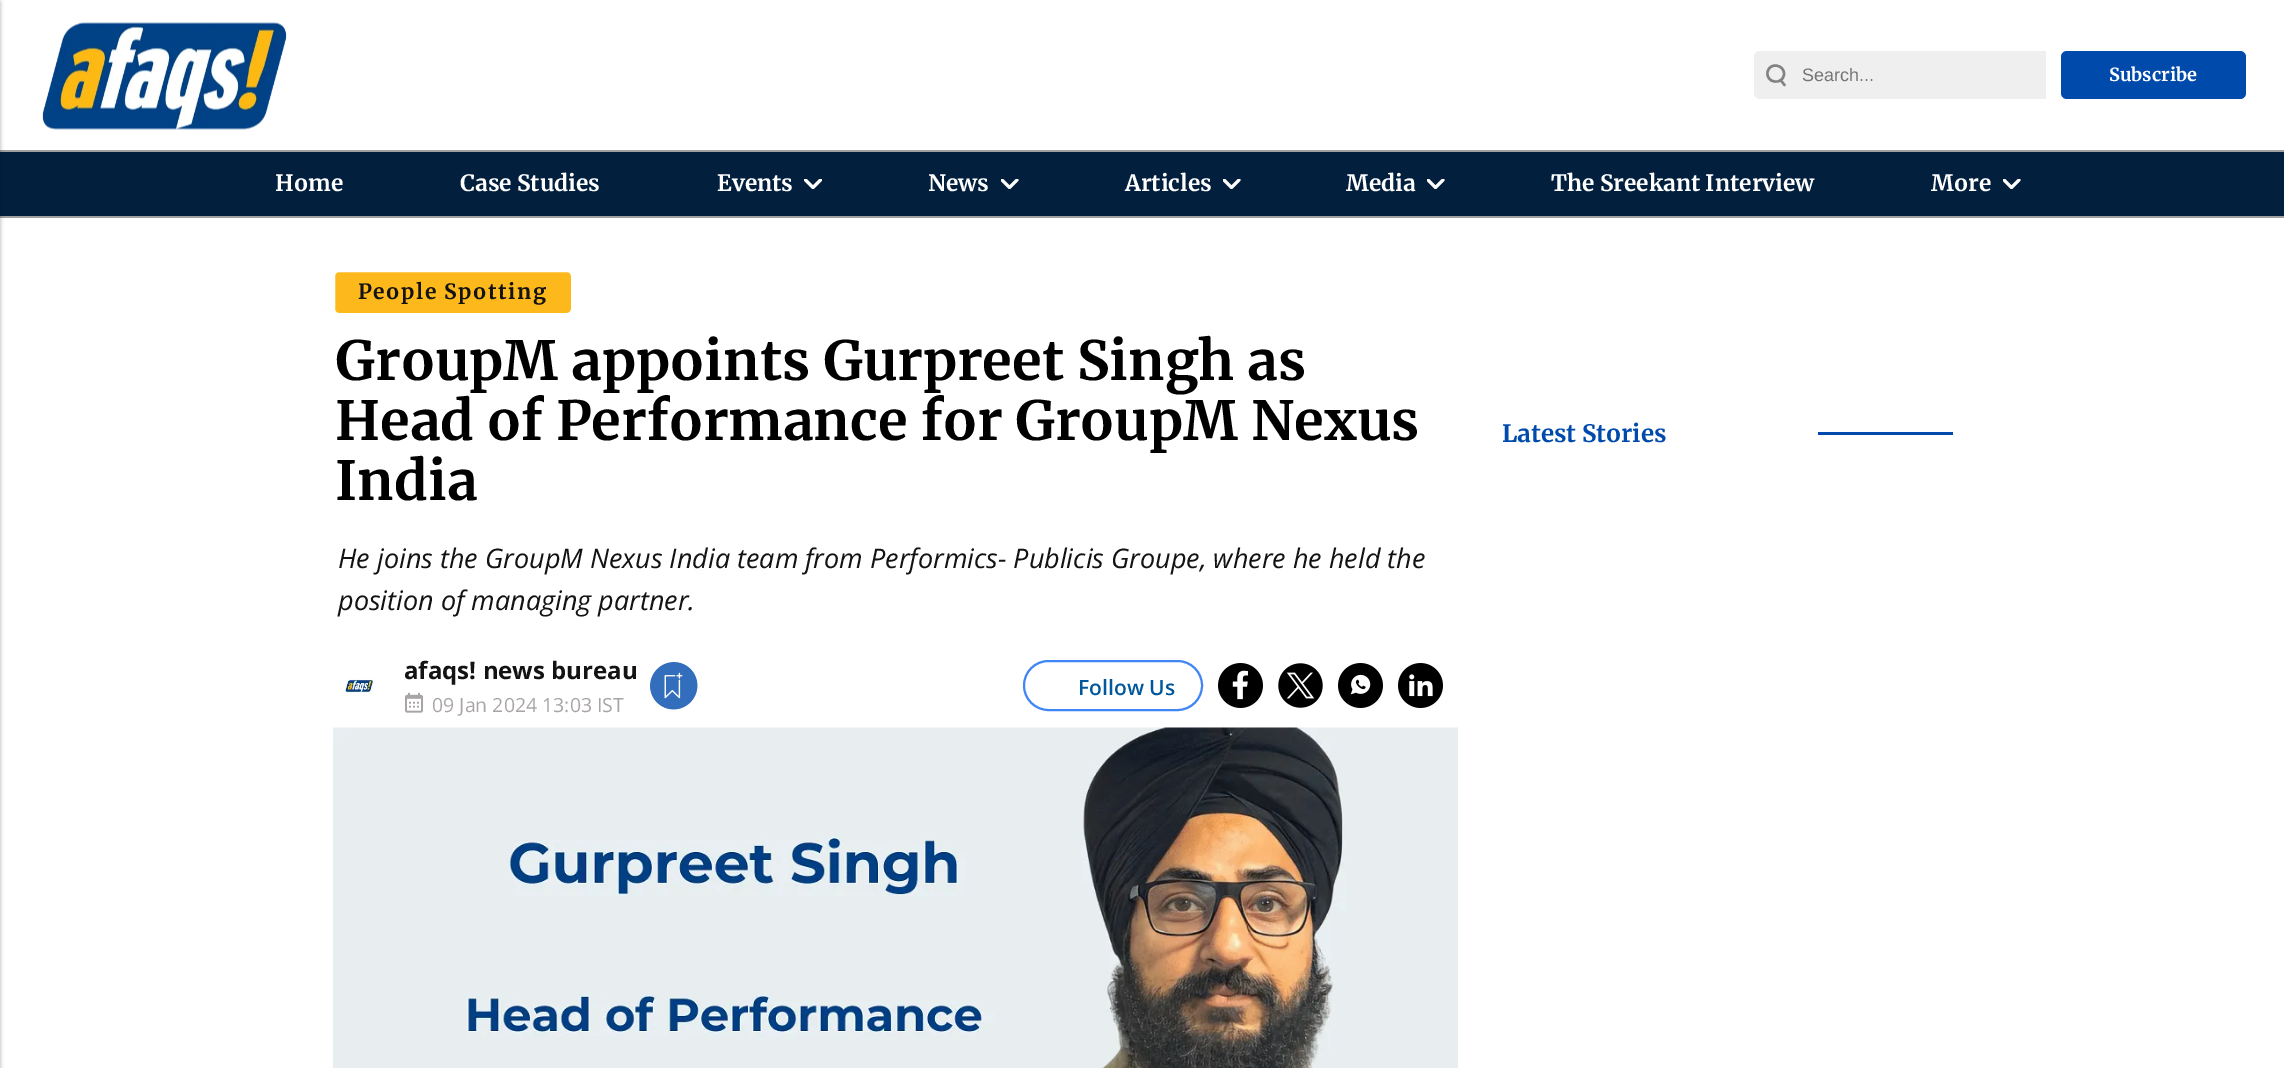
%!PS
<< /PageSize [2284 1068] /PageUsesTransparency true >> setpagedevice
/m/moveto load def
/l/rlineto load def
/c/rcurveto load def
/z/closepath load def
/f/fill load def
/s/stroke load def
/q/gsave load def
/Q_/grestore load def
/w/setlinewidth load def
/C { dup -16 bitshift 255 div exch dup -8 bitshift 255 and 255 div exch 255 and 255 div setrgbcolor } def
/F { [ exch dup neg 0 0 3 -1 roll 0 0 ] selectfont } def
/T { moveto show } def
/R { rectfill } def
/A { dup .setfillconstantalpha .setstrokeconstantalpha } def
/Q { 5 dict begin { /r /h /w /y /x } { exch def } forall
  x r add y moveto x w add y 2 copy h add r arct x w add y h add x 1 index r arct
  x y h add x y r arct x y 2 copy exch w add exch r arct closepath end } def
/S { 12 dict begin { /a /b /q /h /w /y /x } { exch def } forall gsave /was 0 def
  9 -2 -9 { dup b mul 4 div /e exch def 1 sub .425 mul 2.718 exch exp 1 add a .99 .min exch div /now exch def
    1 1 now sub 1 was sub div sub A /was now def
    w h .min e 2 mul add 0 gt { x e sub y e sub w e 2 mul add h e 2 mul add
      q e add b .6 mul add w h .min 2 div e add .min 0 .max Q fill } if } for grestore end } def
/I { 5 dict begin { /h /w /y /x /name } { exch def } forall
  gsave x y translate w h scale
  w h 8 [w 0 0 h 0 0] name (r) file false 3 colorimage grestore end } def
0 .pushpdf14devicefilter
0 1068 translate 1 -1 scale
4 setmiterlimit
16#FFFFFF C
0 0 2284 1068 R
16#A0A0A0 C
0 150 2284 2 R
0 216 2284 2 R
16#021F3E C
0 152 2284 64 R
16#000000 C
-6 3 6 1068 0 2 .22 S
-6 0 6 1068 0 2 .12 S
(1.rgb) 42 22 245 108 I
16#EFEFEF C
1754 51 324 48 6 Q f
16#828282 C
2.4 w
1 setlinecap
1 setlinejoin
1784 74.5 m -1.5 11 -18 8.5 -16.5 -2 c 1.5 -11 17.5 -8 16.5 2 c z 1784.5 85 m -4 -5 l s
16#EFEFEF C
1799 51 279 48 6 Q f
/LiberationSans-Regular 18 F
16#757575 C
(Search...) 1802 81 T
16#FFFFFF C
2046 51 32 48 R
16#004AAC C
2061 51 185 48 6 Q f
/Merriweather-Bold 18 F
16#FFFFFF C
(Subscribe) 2109 81 T
/Merriweather-Bold 22.5 F
(Home) 275 191 T
(Case Studies) 460 191 T
(Events) 717 191 T
q
804 179 18 10 rectclip
3 w
805.5 180 m 7.5 7.5 l 7.5 -7.5 l s
Q_
(News) 928 191 T
q
1001 179 18 10 rectclip
3 w
1002 180 m 7.5 7.5 l 7.5 -7.5 l s
Q_
(Articles) 1125 191 T
q
1223 179 18 10 rectclip
3 w
1224 180 m 7.5 7.5 l 7.5 -7.5 l s
Q_
(Media) 1346 191 T
q
1427 179 18 10 rectclip
3 w
1428 180 m 7.5 7.5 l 7.5 -7.5 l s
Q_
(The Sreekant Interview) 1551 191 T
(More) 1931 191 T
q
2003 179 18 10 rectclip
3 w
2004 180 m 7.5 7.5 l 7.5 -7.5 l s
Q_
16#FDB91B C
334 271 238 43 5 Q q f Q_
16#FFFFFF C
2 w
0 setlinecap
0 setlinejoin
s
/Merriweather-Bold 21 F
16#131313 C
358 299 m 1.5 0 (People Spotting) ashow
/Merriweather-Bold 54 F
16#000000 C
(GroupM appoints Gurpreet Singh as) 335 380 T
(Head of Performance for GroupM Nexus) 335 440 T
(India) 335 500 T
/OpenSans-Italic 27 F
16#131313 C
(He joins the GroupM Nexus India team from Performics- Publicis Groupe, where he held the) 338 568 T
(position of managing partner.) 338 610 T
(2.rgb) 345 677 30 17 I
/OpenSans-Bold 24 F
(afaqs! news bureau) 404 679 T
(3.rgb) 405 692 18 21 I
/OpenSans-Regular 19.5 F
16#A9A5A5 C
(09 Jan 2024 13:03 IST) 432 712 T
(4.rgb) 650 662 48 48 I
16#4086F4 C
1024 661 178 49 24.5 Q s
/OpenSans-SemiBold 21 F
16#01579B C
(Follow Us) 1078 695 T
(5.rgb) 1218 663 45 45 I
(6.rgb) 1278 663 45 45 I
(7.rgb) 1338 663 45 45 I
(8.rgb) 1398 663 45 45 I
(9.rgb) 333 727 1125 341 I
/Merriweather-Bold 24 F
16#004AAC C
(Latest Stories) 1502 442 T
1818 432 135 3 R
.poppdf14devicefilter showpage
